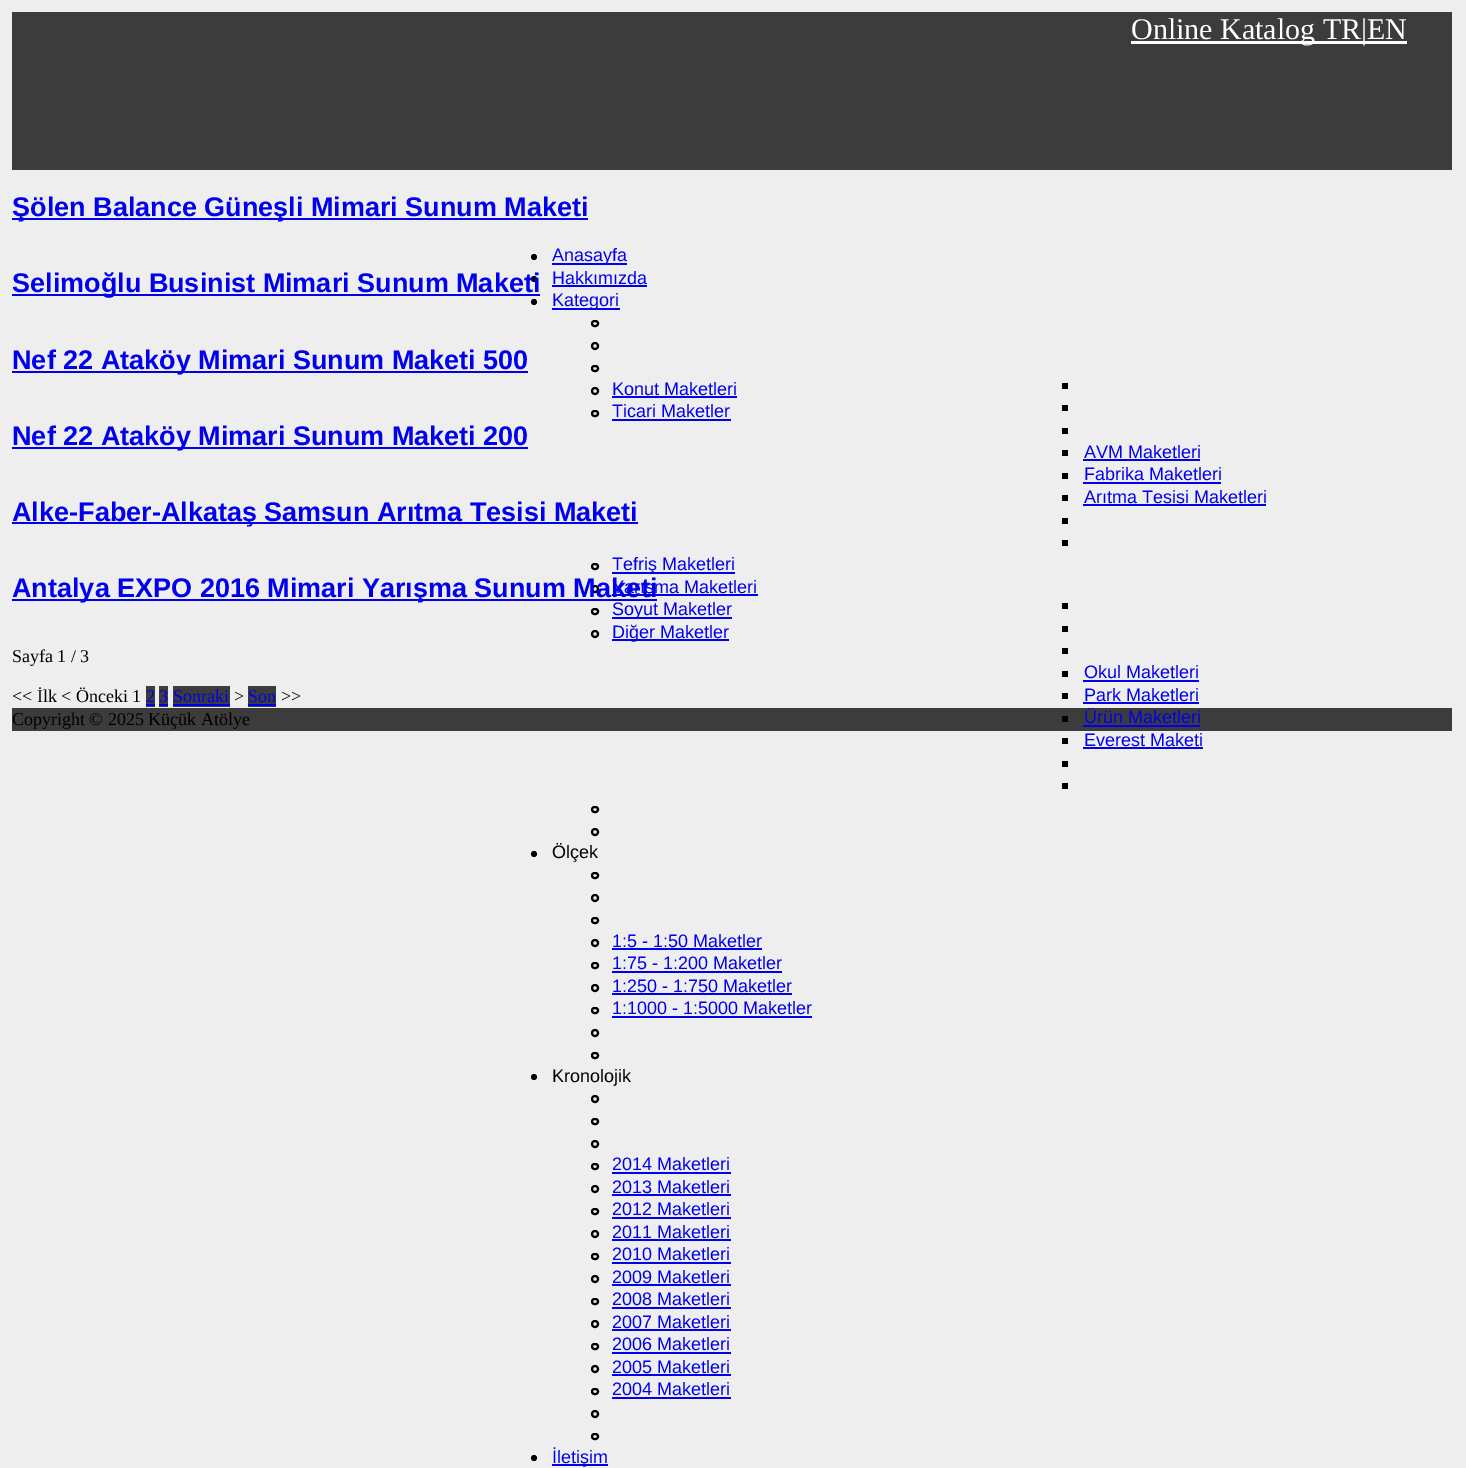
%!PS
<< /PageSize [1466 1468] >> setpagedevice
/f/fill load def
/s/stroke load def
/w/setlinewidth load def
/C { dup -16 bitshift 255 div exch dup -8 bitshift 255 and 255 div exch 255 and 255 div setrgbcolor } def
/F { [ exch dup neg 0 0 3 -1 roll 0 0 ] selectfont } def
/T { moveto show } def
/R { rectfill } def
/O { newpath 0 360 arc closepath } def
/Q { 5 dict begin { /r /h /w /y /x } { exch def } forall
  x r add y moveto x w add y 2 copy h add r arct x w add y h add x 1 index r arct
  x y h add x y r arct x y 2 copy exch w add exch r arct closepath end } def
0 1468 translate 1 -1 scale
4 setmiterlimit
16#EEEEEE C
0 0 1466 1468 R
16#0000EE C
12 218 576 2 R
/LiberationSans-Bold 27 F
(Şölen Balance Güneşli Mimari Sunum Maketi) 12 216 T
12 294 528 2 R
16#000000 C
534 279 3 O f
16#0000EE C
(Selimoğlu Businist Mimari Sunum Maketi) 12 292 T
12 371 516 2 R
(Nef 22 Ataköy Mimari Sunum Maketi 500) 12 369 T
12 447 516 2 R
(Nef 22 Ataköy Mimari Sunum Maketi 200) 12 445 T
12 522 626 2 R
(Alke-Faber-Alkataş Samsun Arıtma Tesisi Maketi) 12 521 T
12 599 645 2 R
16#000000 C
2 w
595 589 3 O s
16#0000EE C
612 594 146 2 R
/LiberationSans-Regular 18 F
(Yarışma Maketleri) 612 593 T
/LiberationSans-Bold 27 F
(Antalya EXPO 2016 Mimari Yarışma Sunum Maketi) 12 597 T
/LiberationSerif-Regular 18 F
16#000000 C
(Sayfa 1 / 3) 12 662 T
(<< İlk < Önceki 1) 12 702 T
16#3C3C3C C
146 686 9 21 R
16#0000EE C
(2) 146 702 T
146 704 9 2 R
16#3C3C3C C
159 686 9 21 R
16#0000EE C
(3) 159 702 T
159 704 9 2 R
16#3C3C3C C
173 686 57 21 R
16#0000EE C
(Sonraki) 173 702 T
173 704 57 2 R
16#000000 C
(>) 234 702 T
16#3C3C3C C
248 686 28 21 R
16#0000EE C
(Son) 248 702 T
248 704 28 2 R
16#000000 C
(>>) 281 702 T
16#3C3C3C C
12 12 1440 158 R
16#FFFFFF C
1131 41 276 3 R
/LiberationSerif-Regular 30 F
(Online Katalog TR) 1131 39 T
(|EN) 1361 39 T
16#000000 C
534 257 3 O f
16#0000EE C
552 263 75 2 R
/LiberationSans-Regular 18 F
(Anasayfa) 552 261 T
(Hakkımızda) 552 284 T
552 285 95 2 R
16#000000 C
534 302 3 O f
16#0000EE C
552 308 68 2 R
(Kategori) 552 306 T
16#000000 C
592 321 6 5 2.5 Q s
595 346 3 O s
592 366 6 5 2.5 Q s
595 391 3 O s
16#0000EE C
(Konut Maketleri) 612 395 T
612 396 125 2 R
16#000000 C
592 411 6 5 2.5 Q s
16#0000EE C
(Ticari Maketler) 612 417 T
612 419 119 2 R
16#000000 C
1062 383 6 6 R
1062 405 6 6 R
1062 428 6 6 R
1062 450 6 6 R
16#0000EE C
(AVM Maketleri) 1084 458 T
1083 459 117 2 R
16#000000 C
1062 473 6 6 R
16#0000EE C
(Fabrika Maketleri) 1084 480 T
1083 482 138 2 R
16#000000 C
1062 495 6 6 R
16#0000EE C
(Arıtma Tesisi Maketleri) 1084 503 T
1083 504 183 2 R
16#000000 C
1062 518 6 6 R
1062 540 6 6 R
592 564 6 5 2.5 Q s
16#0000EE C
612 572 123 2 R
(Tefriş Maketleri) 612 570 T
16#000000 C
592 609 6 5 2.5 Q s
16#0000EE C
612 617 120 2 R
(Soyut Maketler) 612 615 T
16#000000 C
595 634 3 O s
16#0000EE C
612 639 117 2 R
(Diğer Maketler) 612 638 T
16#000000 C
1062 603 6 6 R
1062 626 6 6 R
1062 648 6 6 R
1062 671 6 6 R
16#0000EE C
(Okul Maketleri) 1084 678 T
1083 680 116 2 R
16#000000 C
1062 693 6 6 R
16#0000EE C
(Park Maketleri) 1084 701 T
1083 702 116 2 R
16#3C3C3C C
12 708 1440 23 R
16#000000 C
1062 716 6 6 R
16#0000EE C
(Ürün Maketleri) 1084 723 T
1083 725 117 2 R
16#000000 C
1062 738 6 6 R
16#0000EE C
(Everest Maketi) 1084 746 T
1083 747 120 2 R
16#000000 C
1062 761 6 6 R
1062 783 6 6 R
592 807 6 5 2.5 Q s
595 832 3 O s
534 854 3 O f
(Ölçek) 552 858 T
592 873 6 5 2.5 Q s
595 898 3 O s
592 918 6 5 2.5 Q s
595 943 3 O s
16#0000EE C
(1:5 - 1:50 Maketler) 612 947 T
612 948 150 2 R
16#000000 C
592 963 6 5 2.5 Q s
16#0000EE C
(1:75 - 1:200 Maketler) 612 969 T
612 971 170 2 R
16#000000 C
595 988 3 O s
16#0000EE C
(1:250 - 1:750 Maketler) 612 992 T
612 993 180 2 R
16#000000 C
592 1008 6 5 2.5 Q s
16#0000EE C
(1:1000 - 1:5000 Maketler) 612 1014 T
612 1016 200 2 R
16#000000 C
595 1033 3 O s
592 1053 6 5 2.5 Q s
534 1077 3 O f
(Kronolojik) 552 1082 T
595 1099 3 O s
592 1119 6 5 2.5 Q s
595 1144 3 O s
592 1164 6 5 2.5 Q s
16#0000EE C
(2014 Maketleri) 612 1170 T
612 1172 119 2 R
16#000000 C
595 1189 3 O s
16#0000EE C
(2013 Maketleri) 612 1193 T
612 1194 119 2 R
16#000000 C
592 1209 6 5 2.5 Q s
16#0000EE C
(2012 Maketleri) 612 1215 T
612 1217 119 2 R
16#000000 C
595 1234 3 O s
16#0000EE C
(2011 Maketleri) 612 1238 T
612 1239 119 2 R
16#000000 C
592 1254 6 5 2.5 Q s
16#0000EE C
(2010 Maketleri) 612 1260 T
612 1262 119 2 R
16#000000 C
595 1279 3 O s
16#0000EE C
(2009 Maketleri) 612 1283 T
612 1284 119 2 R
16#000000 C
592 1299 6 5 2.5 Q s
16#0000EE C
(2008 Maketleri) 612 1305 T
612 1307 119 2 R
16#000000 C
595 1324 3 O s
16#0000EE C
(2007 Maketleri) 612 1328 T
612 1329 119 2 R
16#000000 C
592 1344 6 5 2.5 Q s
16#0000EE C
(2006 Maketleri) 612 1350 T
612 1352 119 2 R
16#000000 C
595 1369 3 O s
16#0000EE C
(2005 Maketleri) 612 1373 T
612 1374 119 2 R
16#000000 C
592 1389 6 5 2.5 Q s
16#0000EE C
(2004 Maketleri) 612 1395 T
612 1397 119 2 R
16#000000 C
595 1414 3 O s
592 1434 6 5 2.5 Q s
534 1458 3 O f
16#0000EE C
552 1464 56 2 R
(İletişim) 552 1463 T
/LiberationSerif-Regular 18 F
16#000000 C
(Copyright © 2025 Küçük Atölye) 12 725 T
showpage
